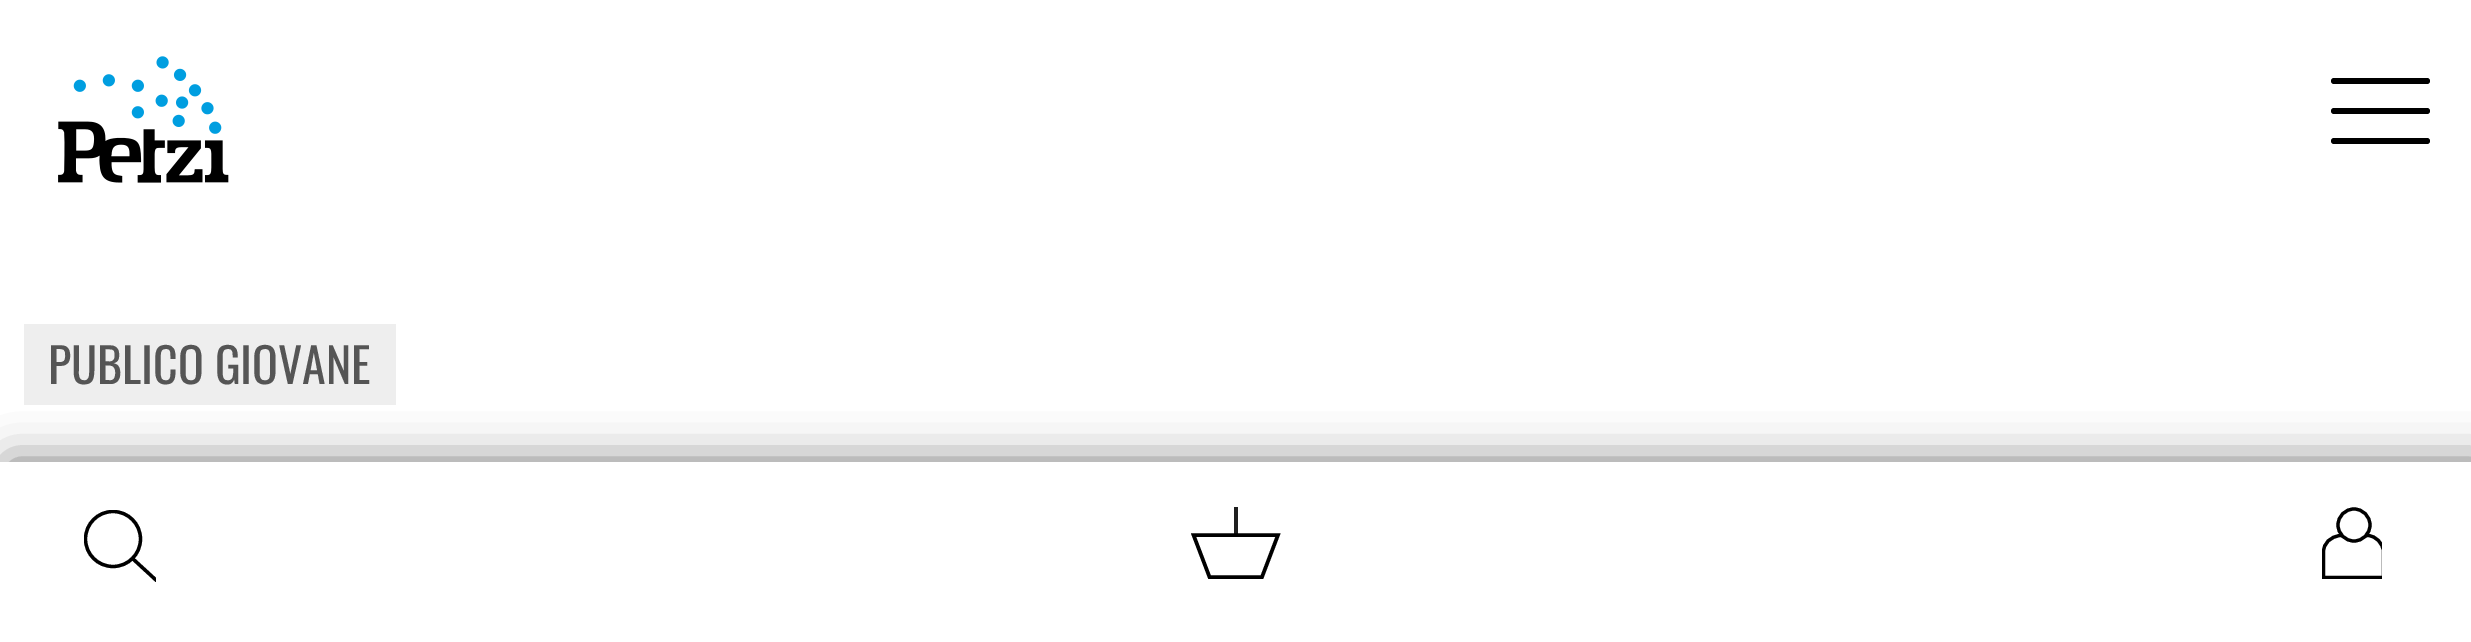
%!PS
<< /PageSize [2471 642] /PageUsesTransparency true >> setpagedevice
/m/moveto load def
/l/rlineto load def
/c/rcurveto load def
/z/closepath load def
/f/fill load def
/s/stroke load def
/q/gsave load def
/Q_/grestore load def
/w/setlinewidth load def
/C { dup -16 bitshift 255 div exch dup -8 bitshift 255 and 255 div exch 255 and 255 div setrgbcolor } def
/F { [ exch dup neg 0 0 3 -1 roll 0 0 ] selectfont } def
/T { moveto show } def
/R { rectfill } def
/A { dup .setfillconstantalpha .setstrokeconstantalpha } def
/O { newpath 0 360 arc closepath } def
/Q { 5 dict begin { /r /h /w /y /x } { exch def } forall
  x r add y moveto x w add y 2 copy h add r arct x w add y h add x 1 index r arct
  x y h add x y r arct x y 2 copy exch w add exch r arct closepath end } def
/S { 12 dict begin { /a /b /q /h /w /y /x } { exch def } forall gsave /was 0 def
  9 -2 -9 { dup b mul 4 div /e exch def 1 sub .425 mul 2.718 exch exp 1 add a .99 .min exch div /now exch def
    1 1 now sub 1 was sub div sub A /was now def
    w h .min e 2 mul add 0 gt { x e sub y e sub w e 2 mul add h e 2 mul add
      q e add b .6 mul add w h .min 2 div e add .min 0 .max Q fill } if } for grestore end } def
/I { 5 dict begin { /h /w /y /x /name } { exch def } forall
  gsave x y translate w h scale
  w h 8 [w 0 0 h 0 0] name (r) file false 3 colorimage grestore end } def
0 .pushpdf14devicefilter
0 642 translate 1 -1 scale
4 setmiterlimit
16#FFFFFF C
0 0 2471 642 R
(1.rgb) 58 56 171 127 I
16#000000 C
2331 108 99 6 3 Q f
2331 78 99 6 3 Q f
2331 138 99 6 3 Q f
16#EEEEEE C
24 324 372 81 R
/Oswald-Regular 48 F
16#555555 C
(PUBLICO GIOVANE) 48 384 T
16#777777 C
9 462 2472 180 0 22.5 1 S
16#FFFFFF C
0 462 2471 180 R
q
84 510 72 72 rectclip
16#000000 C
3.3 w
113 539 27.5 O s
132.5 558.5 m 24.5 22.5 l s
Q_
16#000000 C
3.5 w
1193.5 535 m 84.5 0 l -16 42 l -52.5 0 l z s
0.88 A
1234 507 4 28 R
q
2322 507 60 72 rectclip
1 A
3.2 w
2323.5 577.5 m 60 0 l 0 -26.5 l -1 -8 -7.5 -15 -15.5 -15.5 c -27.5 0 l -10.5 1 -17 8 -17 16.5 c z s
Q_
1 A
16#FFFFFF C
2354 525 16 O q f Q_
16#000000 C
3.2 w
s
.poppdf14devicefilter showpage
